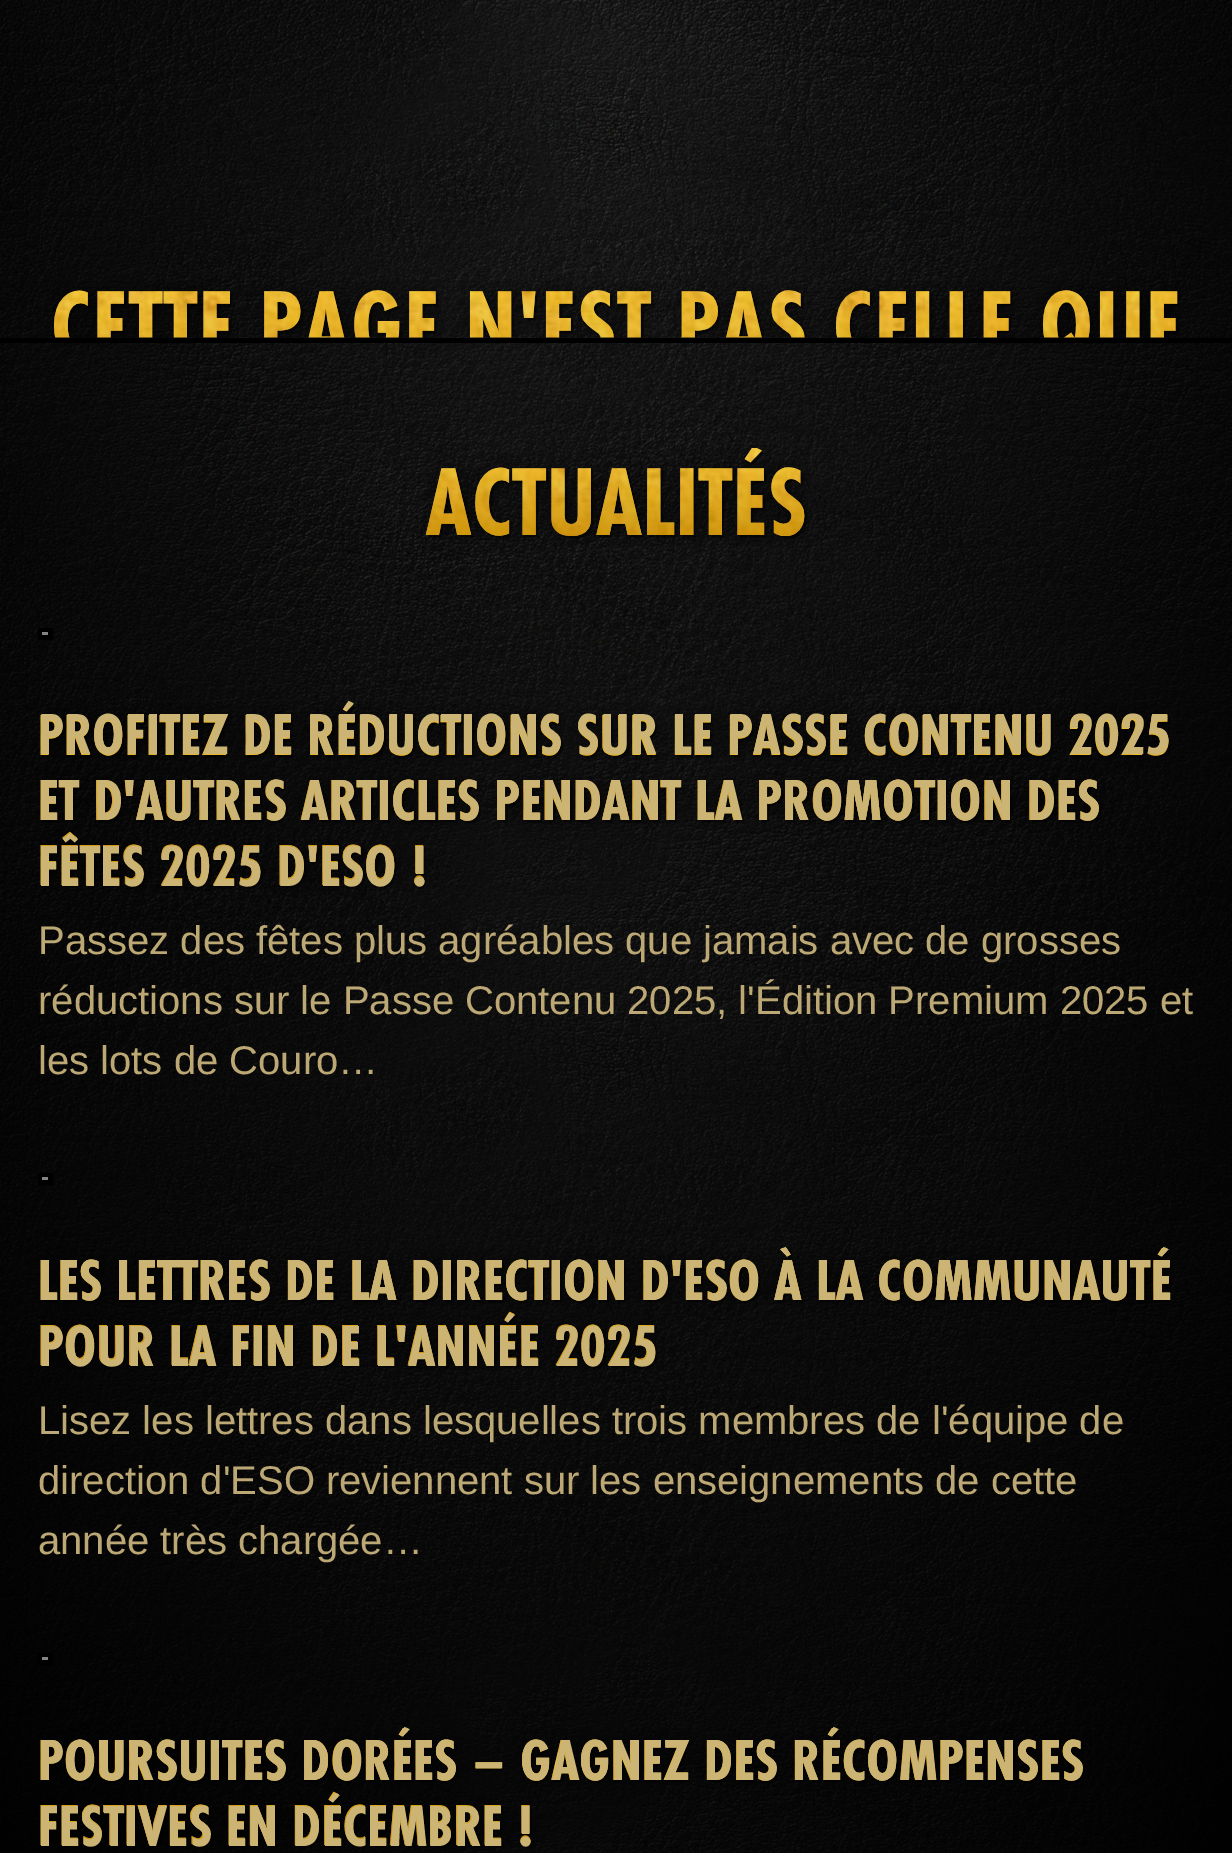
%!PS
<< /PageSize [1232 1853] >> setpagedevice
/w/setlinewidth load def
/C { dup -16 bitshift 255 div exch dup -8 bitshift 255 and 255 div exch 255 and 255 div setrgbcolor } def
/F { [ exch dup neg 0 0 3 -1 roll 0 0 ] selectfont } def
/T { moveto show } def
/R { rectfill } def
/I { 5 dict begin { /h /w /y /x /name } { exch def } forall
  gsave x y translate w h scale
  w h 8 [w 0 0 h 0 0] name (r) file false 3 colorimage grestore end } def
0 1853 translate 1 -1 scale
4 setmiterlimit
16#FFFFFF C
0 0 1232 1853 R
(1.rgb) 0 0 1232 1853 I
16#000000 C
0 338 1232 5 R
(2.rgb) 52 281 1128 57 I
(3.rgb) 419 448 389 99 I
5 w
40.5 630.5 10 7 rectstroke
16#848484 C
42 632 6 3 R
(4.rgb) 40 703 1130 188 I
/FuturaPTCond-Bold 60 F
16#CCB475 C
(PROFITEZ DE RÉDUCTIONS SUR LE PASSE CONTENU 2025) 38 754 T
(ET D'AUTRES ARTICLES PENDANT LA PROMOTION DES) 38 820 T
(FÊTES 2025 D'ESO !) 38 886 T
/LiberationSans-Regular 40 F
16#BCA875 C
(Passez des fêtes plus agréables que jamais avec de grosses) 38 954 T
(réductions sur le Passe Contenu 2025, l'Édition Premium 2025 et) 38 1014 T
(les lots de Couro…) 38 1074 T
16#000000 C
40.5 1175.5 10 7 rectstroke
16#848484 C
42 1177 6 3 R
(5.rgb) 40 1248 1132 122 I
/FuturaPTCond-Bold 60 F
16#CCB475 C
(LES LETTRES DE LA DIRECTION D'ESO À LA COMMUNAUTÉ) 38 1300 T
(POUR LA FIN DE L'ANNÉE 2025) 38 1366 T
/LiberationSans-Regular 40 F
16#BCA875 C
(Lisez les lettres dans lesquelles trois membres de l'équipe de) 38 1434 T
(direction d'ESO reviennent sur les enseignements de cette) 38 1494 T
(année très chargée…) 38 1554 T
16#000000 C
40.5 1655.5 10 7 rectstroke
16#848484 C
42 1657 6 3 R
(6.rgb) 40 1728 1044 120 I
/FuturaPTCond-Bold 60 F
16#CCB475 C
(POURSUITES DORÉES – GAGNEZ DES RÉCOMPENSES) 38 1780 T
(FESTIVES EN DÉCEMBRE !) 38 1846 T
showpage
